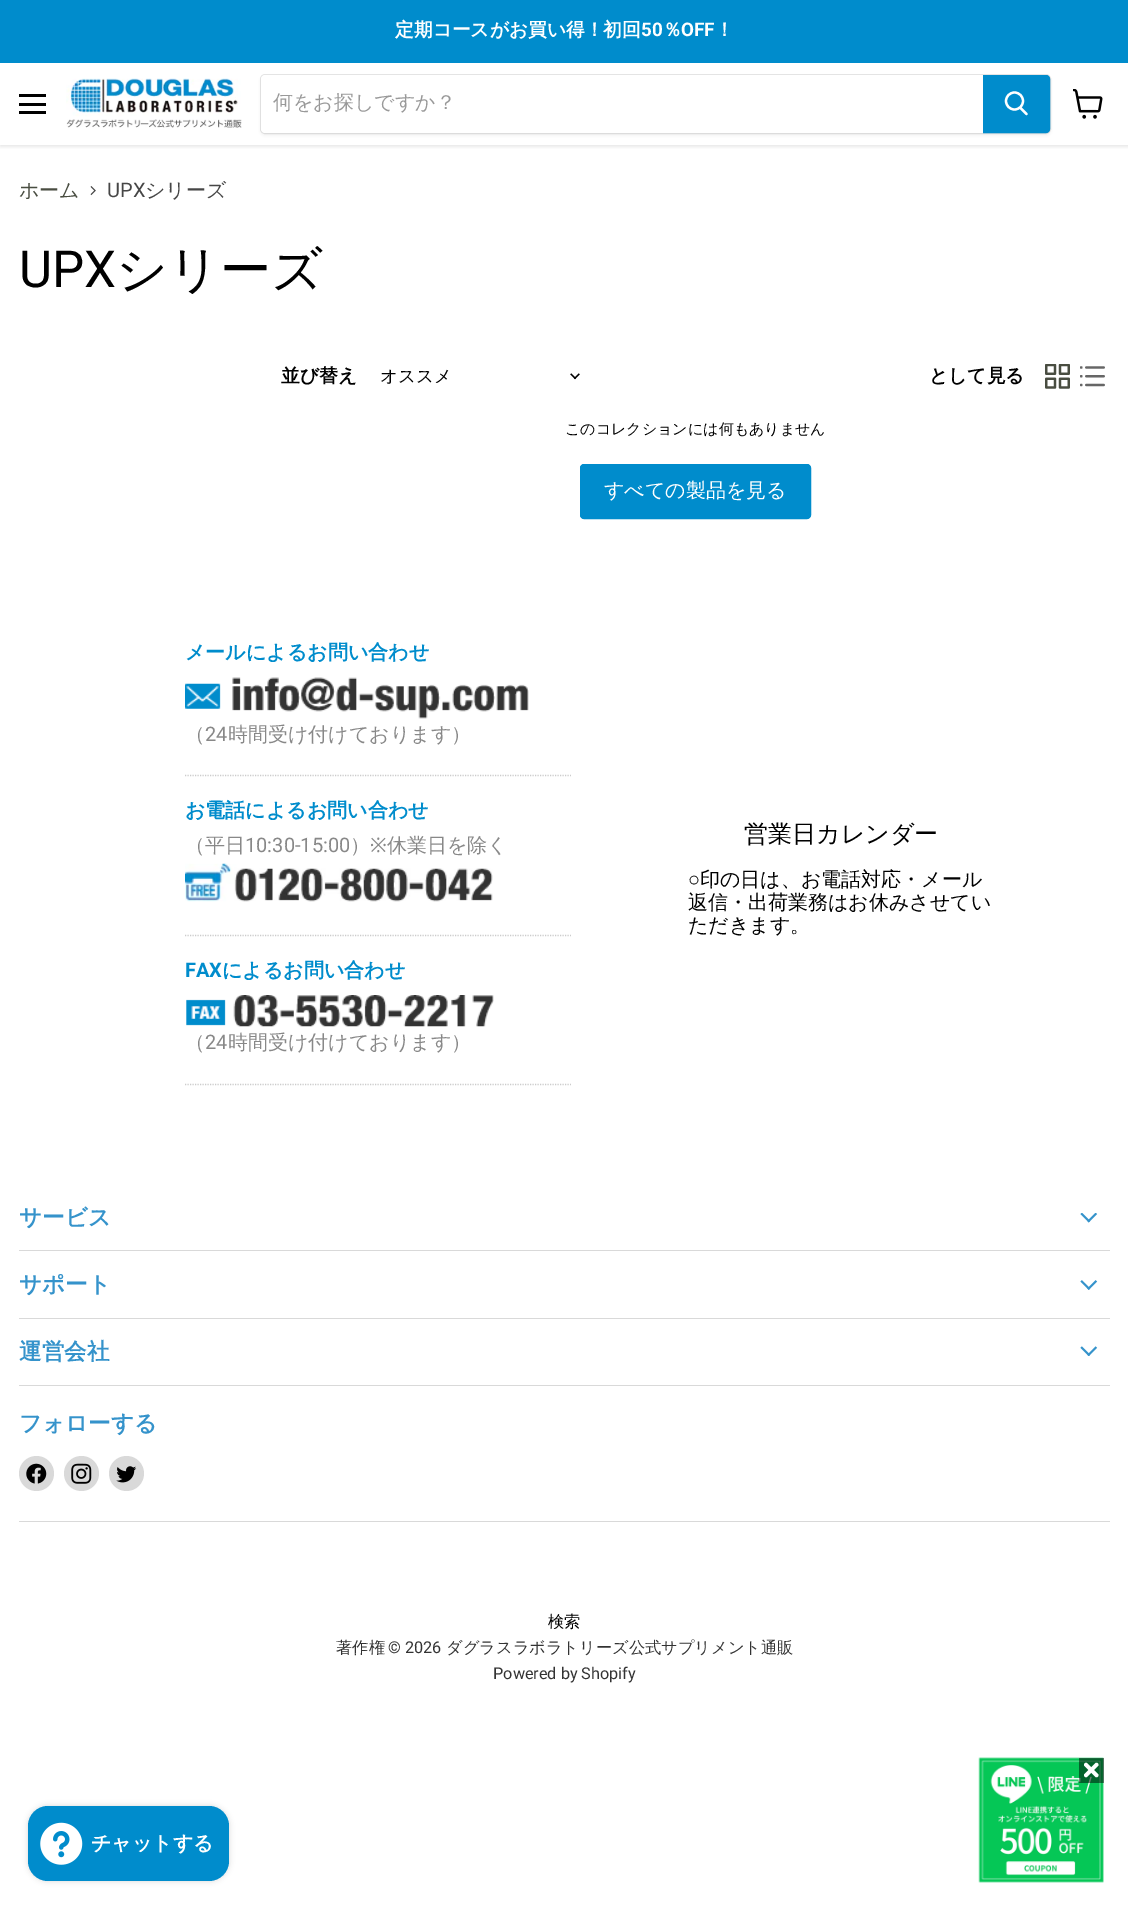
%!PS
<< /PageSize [1128 1907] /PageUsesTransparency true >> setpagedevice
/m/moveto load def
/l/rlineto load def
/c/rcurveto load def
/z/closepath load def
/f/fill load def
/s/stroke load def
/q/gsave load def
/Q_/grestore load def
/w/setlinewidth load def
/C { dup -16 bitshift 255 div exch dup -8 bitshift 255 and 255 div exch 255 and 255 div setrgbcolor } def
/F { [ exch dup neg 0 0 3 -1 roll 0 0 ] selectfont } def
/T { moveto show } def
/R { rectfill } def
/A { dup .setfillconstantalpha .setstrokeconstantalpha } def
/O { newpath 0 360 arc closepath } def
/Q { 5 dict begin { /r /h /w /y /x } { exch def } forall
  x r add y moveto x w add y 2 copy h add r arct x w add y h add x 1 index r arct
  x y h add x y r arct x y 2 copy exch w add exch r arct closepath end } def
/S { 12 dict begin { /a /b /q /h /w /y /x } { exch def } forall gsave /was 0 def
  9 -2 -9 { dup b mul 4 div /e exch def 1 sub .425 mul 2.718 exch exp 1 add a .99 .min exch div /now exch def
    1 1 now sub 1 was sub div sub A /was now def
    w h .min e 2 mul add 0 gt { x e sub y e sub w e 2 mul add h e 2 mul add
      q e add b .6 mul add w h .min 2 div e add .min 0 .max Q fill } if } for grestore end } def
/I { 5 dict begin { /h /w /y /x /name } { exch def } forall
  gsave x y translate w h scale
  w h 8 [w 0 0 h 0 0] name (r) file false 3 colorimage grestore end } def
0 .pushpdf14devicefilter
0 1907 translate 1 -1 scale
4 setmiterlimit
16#FFFFFF C
0 0 1128 1907 R
q
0 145 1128 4 rectclip
16#808080 C
0 64 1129 82 0 2.5 .25 S
Q_
16#008CCC C
0 0 1128 63 R
/WenQuanYiZenHei-Bold 18.75 F
16#FFFFFF C
(定期コースがお買い得！初回) 395 36 T
/Roboto-Bold 18.75 F
(50) 641 36 T
/WenQuanYiZenHei-Bold 18.75 F
(％) 663 36 T
/Roboto-Bold 18.75 F
(OFF) 681 36 T
/WenQuanYiZenHei-Bold 18.75 F
(！) 715 36 T
16#000000 C
19 94 27 3 R
19 103 27 3 R
19 111 27 3 R
(1.rgb) 66 78 176 50 I
16#808080 C
260 76 791 60 5 2 .11 S
0.2 A
260.5 74.5 790 59 4.5 Q s
1 A
16#FFFFFF C
265 75 m 718 0 l 0 58 l -718 0 l -2 0 -4 -2 -4 -4 c 0 -50 l 0 -2 2 -4 4 -4 c z f
/WenQuanYiZenHei-Medium 20 F
16#999999 C
(何をお探しですか？) 273 109 T
16#008CCC C
983.5 75.5 m 62.5 0 l 2 0 3.5 1.5 3.5 3.5 c 0 50 l 0 2 -1.5 3.5 -3.5 3.5 c -62.5 0 l z q f Q_
s
16#FFFFFF C
2.2 w
1 setlinecap
1026.5 114 m -6 -6 l s
0 setlinecap
1014.5 101 8.5 O s
(2.rgb) 1073 89 30 30 I
16#494D41 C
(ホーム) 19 197 T
(3.rgb) 90 186 6 10 I
/Roboto-Regular 20 F
16#464646 C
(UPX) 107 197 T
/WenQuanYiZenHei-Medium 20 F
(シリーズ) 145 197 T
/Roboto-Regular 51 F
16#000000 C
(UPX) 19 287 T
/WenQuanYiZenHei-Medium 51 F
(シリーズ) 116 287 T
/WenQuanYiZenHei-Bold 18.75 F
(並び替え) 281 382 T
/WenQuanYiZenHei-Medium 17.5 F
(オススメ) 380 382 T
(4.rgb) 570 373 10 7 I
/WenQuanYiZenHei-Bold 18.75 F
(として見る) 929 382 T
(5.rgb) 1045 364 25 25 I
(6.rgb) 1080 366 25 21 I
/WenQuanYiZenHei-Medium 15 F
(このコレクションには何もありません) 565 434 T
16#008CCC C
580.5 464.5 230 54 3.5 Q q f Q_
1 w
s
/WenQuanYiZenHei-Medium 20 F
16#FFFFFF C
(すべての製品を見る) 604 497 T
16#CCCCCC C
1.2 w
[1.25 1.25] 0 setdash
185 775.5 m 386 0 l s
/WenQuanYiZenHei-Bold 20 F
16#008CCC C
(メールによるお問い合わせ) 185 659 T
(7.rgb) 185 677 344 42 I
/WenQuanYiZenHei-Medium 20 F
16#888888 C
(（) 185 741 T
/Roboto-Regular 20 F
(24) 205 741 T
/WenQuanYiZenHei-Medium 20 F
(時間受け付けております）) 228 741 T
16#CCCCCC C
185 935.5 m 386 0 l s
/WenQuanYiZenHei-Bold 20 F
16#008CCC C
(お電話によるお問い合わせ) 185 817 T
/WenQuanYiZenHei-Medium 20 F
16#888888 C
(（平日) 185 852 T
/Roboto-Regular 20 F
(10:30-15:00) 245 852 T
/WenQuanYiZenHei-Medium 20 F
(）) 350 852 T
/NotoSans-Regular 20 F
(※) 370 852 T
/WenQuanYiZenHei-Medium 20 F
(休業日を除く) 387 852 T
(8.rgb) 185 863 308 39 I
16#CCCCCC C
185 1084.5 m 386 0 l s
/Roboto-Bold 20 F
16#008CCC C
(FAX) 185 977 T
/WenQuanYiZenHei-Bold 20 F
(によるお問い合わせ) 222 977 T
(9.rgb) 186 995 308 32 I
/WenQuanYiZenHei-Medium 20 F
16#888888 C
(（) 185 1049 T
/Roboto-Regular 20 F
(24) 205 1049 T
/WenQuanYiZenHei-Medium 20 F
(時間受け付けております）) 228 1049 T
/WenQuanYiZenHei-Medium 24 F
16#000000 C
(営業日カレンダー) 744 842 T
/LiberationSans-Regular 20 F
(○) 688 886 T
/WenQuanYiZenHei-Medium 20 F
(印の日は、お電話対応・メール) 700 886 T
(返信・出荷業務はお休みさせてい) 688 909 T
(ただきます。) 688 932 T
16#D9D9D9 C
19 1250 1091 1 R
/WenQuanYiZenHei-Bold 22.5 F
16#3593CB C
(サービス) 19 1225 T
(10.rgb) 1080 1213 18 10 I
16#D9D9D9 C
19 1318 1091 1 R
16#3593CB C
(サポート) 19 1292 T
(11.rgb) 1080 1280 18 10 I
16#D9D9D9 C
19 1385 1091 1 R
16#3593CB C
(運営会社) 19 1359 T
(12.rgb) 1080 1346 18 10 I
16#D9D9D9 C
19 1521 1091 1 R
16#3593CB C
(フォローする) 19 1431 T
16#D9D9D9 C
36.5 1473.5 17.5 O f
(13.rgb) 26 1463 21 21 I
81.5 1473.5 17.5 O f
(14.rgb) 71 1463 21 21 I
126.5 1473.5 17.5 O f
(15.rgb) 116 1466 21 17 I
/WenQuanYiZenHei-Medium 16.25 F
16#000000 C
(検索) 548 1627 T
16#333333 C
(著作権) 336 1653 T
/Roboto-Regular 16.25 F
(© 2026) 388 1653 T
/WenQuanYiZenHei-Medium 16.25 F
(ダグラスラボラトリーズ公式サプリメント通販) 446 1653 T
/Roboto-Regular 16.25 F
(Powered by Shopify) 493 1679 T
16#000000 C
28 1806 201 75 20 3 .15 S
16#008CCC C
28 1806 201 75 20 Q f
(16.rgb) 40 1822 43 43 I
/WenQuanYiZenHei-Bold 20 F
16#FFFFFF C
(チャットする) 91 1850 T
(17.rgb) 978 1757 126 126 I
0.5 A
16#000000 C
1079 1758 25 25 R
1 A
16#FFFFFF C
1098 1763.5 m .5 .5 .5 2 0 2.5 c -10.5 10.5 l -1 1 -2 1 -3 0 c -.5 -.5 -.5 -2 0 -2.5 c 10.5 -10.5 l 1 -1 2 -1 3 0 c z f
1084.5 1763.5 m 1 -1 2 -1 3 0 c 10.5 10.5 l .5 .5 .5 2 0 2.5 c -1 1 -2 1 -3 0 c -10.5 -10.5 l -.5 -.5 -.5 -2 0 -2.5 c z f
.poppdf14devicefilter showpage
